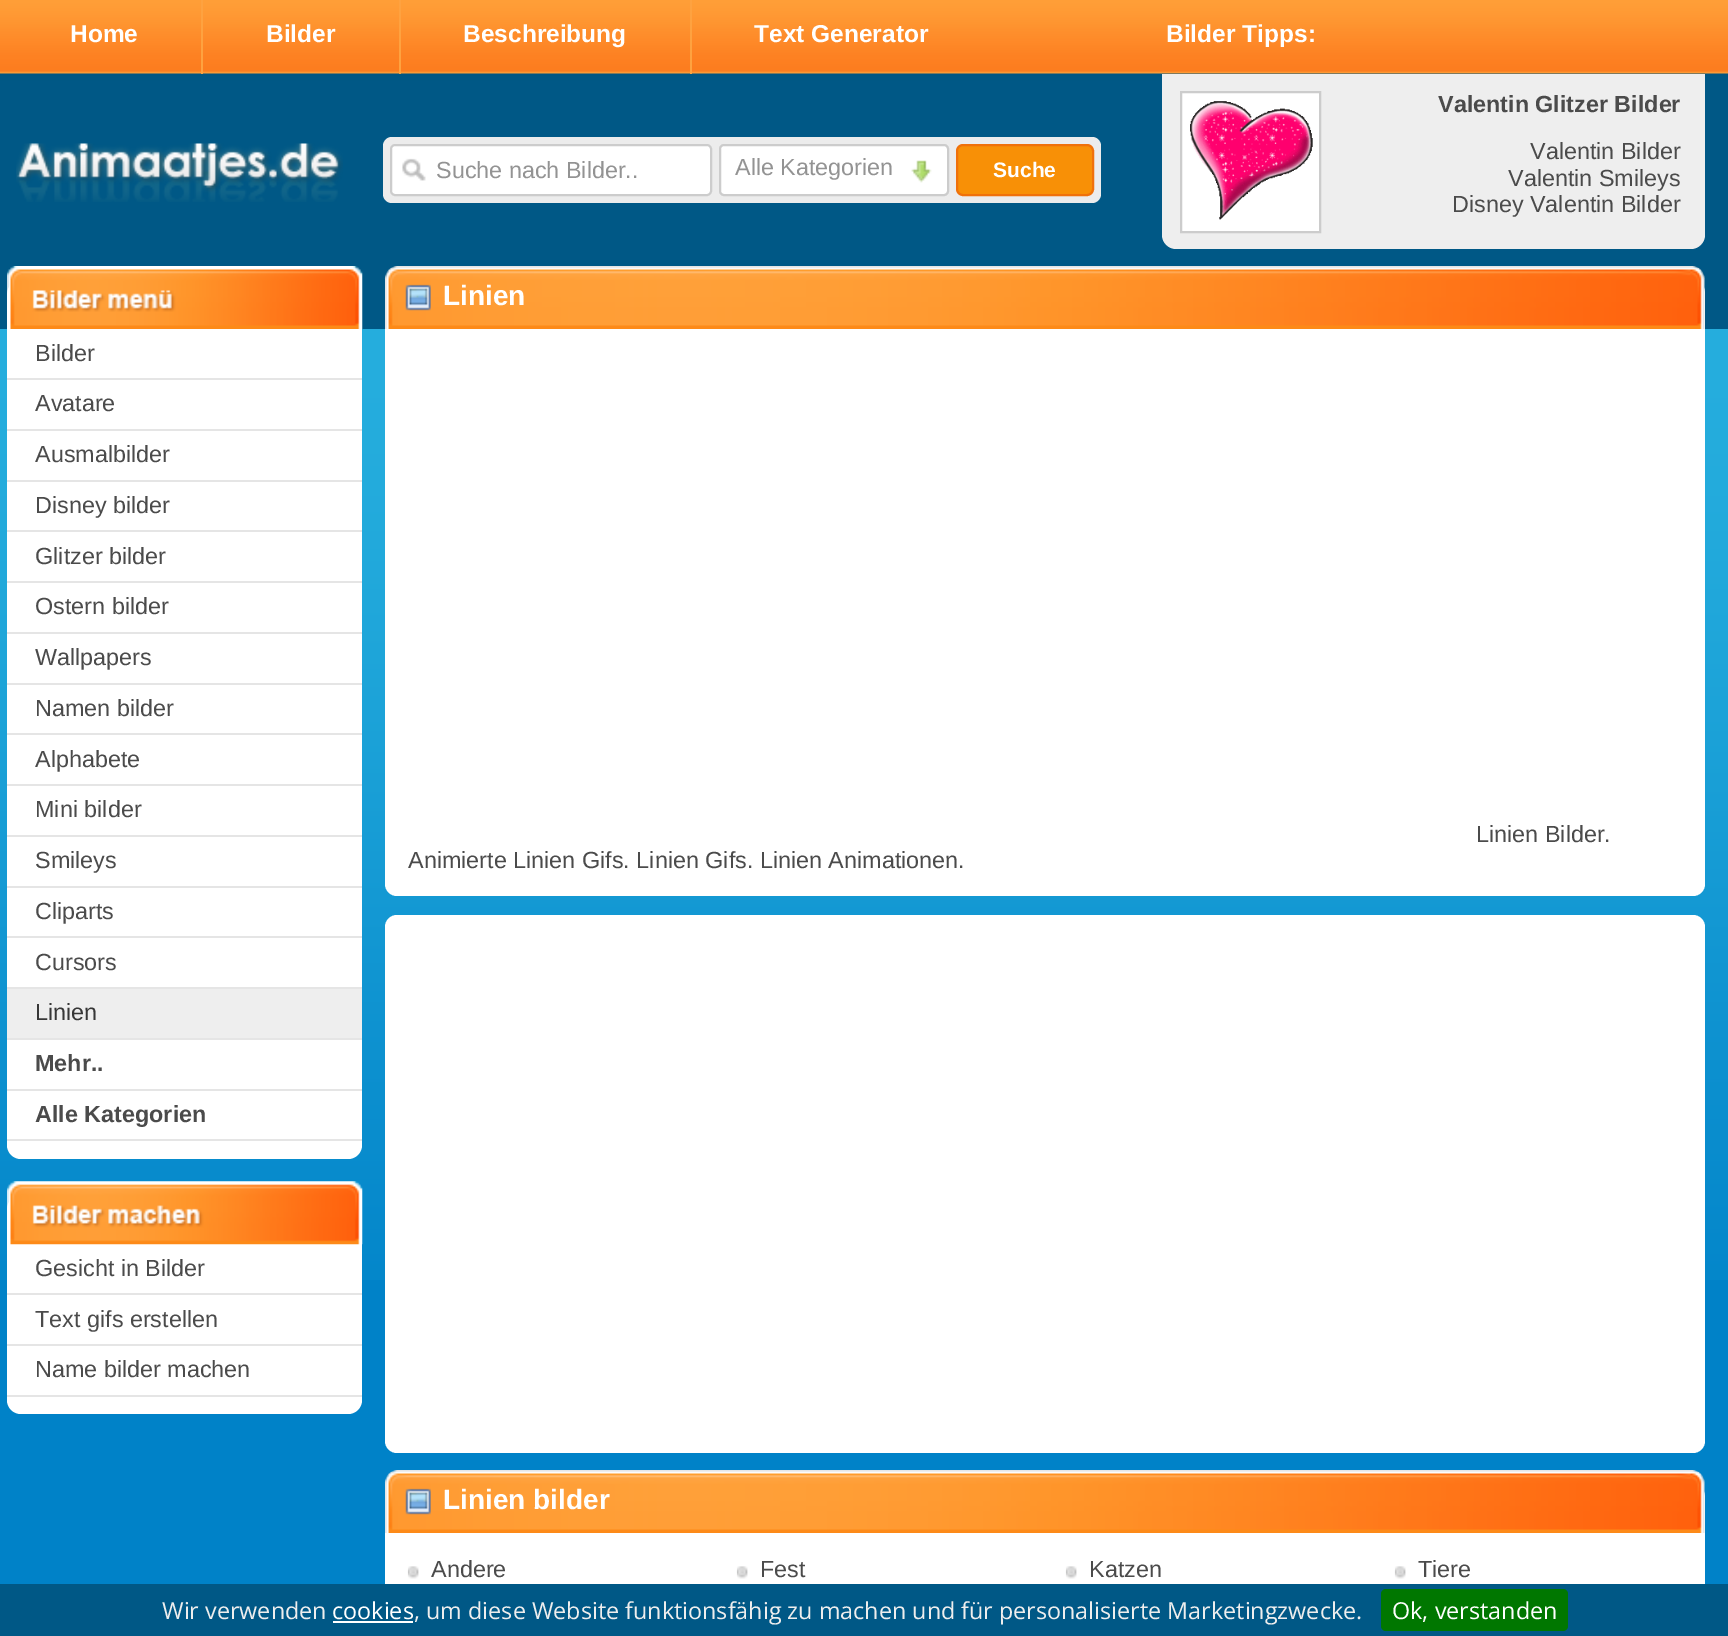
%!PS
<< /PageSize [1728 1636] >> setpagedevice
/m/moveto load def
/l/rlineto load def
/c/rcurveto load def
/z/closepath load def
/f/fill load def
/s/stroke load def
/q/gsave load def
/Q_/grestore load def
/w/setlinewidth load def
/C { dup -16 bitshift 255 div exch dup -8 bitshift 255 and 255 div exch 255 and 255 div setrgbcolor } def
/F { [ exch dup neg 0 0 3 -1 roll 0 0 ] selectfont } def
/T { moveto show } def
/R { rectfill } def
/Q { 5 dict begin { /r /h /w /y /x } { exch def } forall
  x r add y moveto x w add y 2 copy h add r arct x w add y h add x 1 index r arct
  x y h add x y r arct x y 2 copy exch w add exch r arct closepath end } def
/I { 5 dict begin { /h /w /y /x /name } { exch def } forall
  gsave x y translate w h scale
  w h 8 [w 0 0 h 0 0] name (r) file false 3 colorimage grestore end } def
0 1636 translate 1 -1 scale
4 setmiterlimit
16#0082C8 C
0 0 1728 1636 R
(1.rgb) 0 329 1728 951 I
(2.rgb) 0 0 1728 329 I
16#FEA240 C
201 0 2 74 R
/LiberationSans-Bold 24.5 F
16#FFFFFF C
(Home) 70 42 T
16#FEA240 C
399 0 2 74 R
16#FFFFFF C
(Bilder) 266 42 T
16#FEA240 C
690 0 2 74 R
16#FFFFFF C
(Beschreibung) 463 42 T
(Text Generator) 754 42 T
(Bilder Tipps:) 1166 42 T
(3.rgb) 16 143 327 59 I
16#ECECEC C
383 137 718 66 9 Q f
16#FFFFFF C
390 144 322 52 5 Q f
(4.rgb) 402 158 24 23 I
16#CCCCCC C
2 w
391 145 320 50 4 Q s
/LiberationSans-Regular 23.35 F
16#939393 C
(Suche nach Bilder..) 436 178 T
16#FFFFFF C
720 145 228 50 4 Q q f Q_
16#CCCCCC C
s
16#939393 C
(Alle Kategorien) 735 175 T
(5.rgb) 911 160 21 23 I
16#F89006 C
957 145 136 50 6 Q q f Q_
16#F0710A C
s
/LiberationSans-Bold 21 F
16#FFFFFF C
(Suche) 993 177 T
16#EEEEEE C
1162 74 m 543 0 l 0 161 l 0 7.5 -6.5 14 -14 14 c -515 0 l -7.5 0 -14 -6.5 -14 -14 c z f
16#FFFFFF C
1181 92 m 139 0 l 0 140 l -139 0 l z q f Q_
16#CCCCCC C
s
(6.rgb) 1190 101 123 119 I
/LiberationSans-Bold 23.35 F
16#4B4B4B C
(Valentin Glitzer Bilder) 1438 112 T
/LiberationSans-Regular 23.35 F
(Valentin Bilder) 1530 159 T
(Valentin Smileys) 1508 186 T
(Disney Valentin Bilder) 1452 212 T
16#FFFFFF C
7 280 355 879 14 Q f
(7.rgb) 7 266 356 63 I
16#E5E5E5 C
7 378 355 2 R
16#4B4B4B C
(Bilder) 35 361 T
16#E5E5E5 C
7 429 355 2 R
16#4B4B4B C
(Avatare) 35 411 T
16#E5E5E5 C
7 480 355 2 R
16#4B4B4B C
(Ausmalbilder) 35 462 T
16#E5E5E5 C
7 530 355 2 R
16#4B4B4B C
(Disney bilder) 35 513 T
16#E5E5E5 C
7 581 355 2 R
16#4B4B4B C
(Glitzer bilder) 35 564 T
16#E5E5E5 C
7 632 355 2 R
16#4B4B4B C
(Ostern bilder) 35 614 T
16#E5E5E5 C
7 683 355 2 R
16#4B4B4B C
(Wallpapers) 35 665 T
16#E5E5E5 C
7 733 355 2 R
16#4B4B4B C
(Namen bilder) 35 716 T
16#E5E5E5 C
7 784 355 2 R
16#4B4B4B C
(Alphabete) 35 767 T
16#E5E5E5 C
7 835 355 2 R
16#4B4B4B C
(Mini bilder) 35 817 T
16#E5E5E5 C
7 886 355 2 R
16#4B4B4B C
(Smileys) 35 868 T
16#E5E5E5 C
7 936 355 2 R
16#4B4B4B C
(Cliparts) 35 919 T
16#E5E5E5 C
7 987 355 2 R
16#4B4B4B C
(Cursors) 35 970 T
16#EEEEEE C
7 989 355 49 R
16#E5E5E5 C
7 1038 355 2 R
16#373737 C
(Linien) 35 1020 T
16#E5E5E5 C
7 1089 355 2 R
/LiberationSans-Bold 23.35 F
16#4B4B4B C
(Mehr..) 35 1071 T
16#E5E5E5 C
7 1139 355 2 R
16#4B4B4B C
(Alle Kategorien) 35 1122 T
16#FFFFFF C
7 1195 355 219 14 Q f
(8.rgb) 7 1181 356 64 I
16#E5E5E5 C
7 1293 355 2 R
/LiberationSans-Regular 23.35 F
16#4B4B4B C
(Gesicht in Bilder) 35 1276 T
16#E5E5E5 C
7 1344 355 2 R
16#4B4B4B C
(Text gifs erstellen) 35 1327 T
16#E5E5E5 C
7 1395 355 2 R
16#4B4B4B C
(Name bilder machen) 35 1377 T
16#FFFFFF C
385 280 1320 616 12 Q f
(9.rgb) 384 266 1321 63 I
(10.rgb) 405 284 26 27 I
/LiberationSans-Bold 28 F
(Linien) 443 305 T
/LiberationSans-Regular 23.35 F
16#4B4B4B C
(Linien Bilder.) 1476 842 T
(Animierte Linien Gifs. Linien Gifs. Linien Animationen.) 408 868 T
16#FFFFFF C
385 915 1320 538 12 Q f
385 1484 1320 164 12 Q f
(11.rgb) 384 1470 1321 63 I
(10.rgb) 405 1488 26 27 I
/LiberationSans-Bold 28 F
(Linien bilder) 443 1509 T
(12.rgb) 407 1566 12 13 I
/LiberationSans-Regular 23.35 F
16#4B4B4B C
(Andere) 431 1577 T
(12.rgb) 736 1566 12 13 I
(Fest) 760 1577 T
(13.rgb) 1065 1566 12 13 I
(Katzen) 1089 1577 T
(13.rgb) 1394 1566 12 13 I
(Tiere) 1418 1577 T
16#005886 C
0 1584 1728 52 R
/OpenSans-Regular 23.35 F
16#EEEEEE C
(Wir verwenden) 162 1619 T
16#FFFFFF C
(cookies) 332 1619 T
333 1621 80 2 R
16#EEEEEE C
(, um diese Website funktionsfähig zu machen und für personalisierte Marketingzwecke.) 414 1619 T
16#007700 C
1381 1589 187 42 5 Q f
16#FFFFFF C
(Ok, verstanden) 1392 1619 T
showpage
